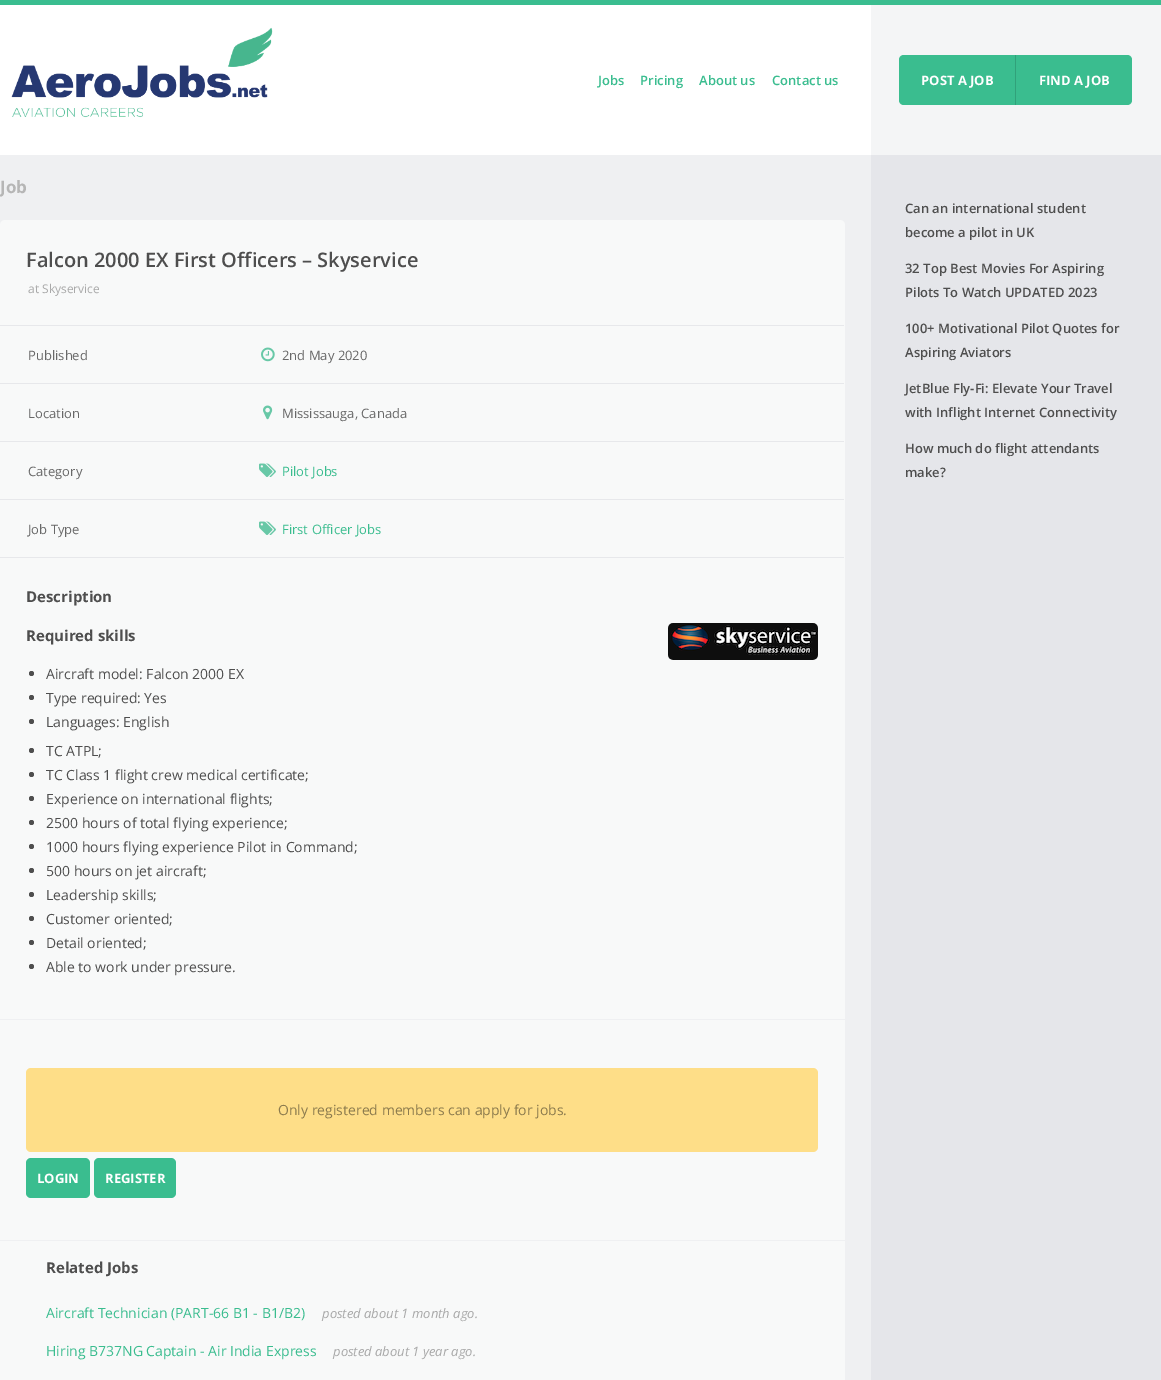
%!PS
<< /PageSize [1161 1380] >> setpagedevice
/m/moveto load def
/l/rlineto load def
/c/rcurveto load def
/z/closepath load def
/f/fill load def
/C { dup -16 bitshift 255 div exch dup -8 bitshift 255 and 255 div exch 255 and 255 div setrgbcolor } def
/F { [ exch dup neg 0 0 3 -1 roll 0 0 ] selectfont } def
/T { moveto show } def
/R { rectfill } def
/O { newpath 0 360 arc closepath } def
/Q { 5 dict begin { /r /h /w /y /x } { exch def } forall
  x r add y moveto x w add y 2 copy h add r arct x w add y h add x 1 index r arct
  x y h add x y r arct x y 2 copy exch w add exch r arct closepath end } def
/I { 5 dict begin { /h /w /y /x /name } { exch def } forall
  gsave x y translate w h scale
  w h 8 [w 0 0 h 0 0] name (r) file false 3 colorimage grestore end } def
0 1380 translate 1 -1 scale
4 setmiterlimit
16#EFF0F2 C
0 0 1161 1380 R
16#3ABD8F C
0 0 1161 5 R
16#FFFFFF C
0 5 871 150 R
(1.rgb) 11 27 262 91 I
/OpenSans-SemiBold 13 F
16#3ABD8F C
(Jobs) 598 85 T
(Pricing) 640 85 T
(About us) 699 85 T
(Contact us) 772 85 T
16#F4F5F6 C
871 5 290 150 R
16#3ABD8F C
904 55 m 111 0 l 0 50 l -111 0 l -3 0 -5 -2 -5 -5 c 0 -40 l 0 -3 2 -5 5 -5 c z f
/OpenSans-Bold 13 F
16#FFFFFF C
(POST A JOB) 921 85 T
16#3ABD8F C
1015 55 m 112 0 l 3 0 5 2 5 5 c 0 40 l 0 3 -2 5 -5 5 c -112 0 l z f
16#31A17A C
1015 55 1 50 R
16#FFFFFF C
(FIND A JOB) 1039 85 T
/OpenSans-Bold 17 F
16#B6B6B6 C
(Job) 0 193 T
16#F8F9F9 C
0 220 845 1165 5 Q f
/OpenSans-SemiBold 20 F
16#4E4E4E C
(Falcon 2000 EX First Officers – Skyservice) 26 267 T
16#E7E8EB C
0 325 844 1 R
/OpenSans-Regular 12 F
16#A9A9A9 C
(at Skyservice) 28 293 T
16#E7E8EB C
0 383 844 1 R
/OpenSans-Regular 13 F
16#686868 C
(Published) 28 360 T
(2.rgb) 261 347 14 15 I
(2nd May 2020) 282 360 T
16#E7E8EB C
0 441 844 1 R
16#686868 C
(Location) 28 418 T
(3.rgb) 263 405 10 15 I
(Mississauga, Canada) 282 418 T
16#E7E8EB C
0 499 844 1 R
16#686868 C
(Category) 28 476 T
(4.rgb) 259 463 17 14 I
16#3ABD8F C
(Pilot Jobs) 282 476 T
16#E7E8EB C
0 557 844 1 R
16#686868 C
(Job Type) 28 534 T
(4.rgb) 259 521 17 14 I
16#3ABD8F C
(First Officer Jobs) 282 534 T
/OpenSans-Bold 15 F
16#4E4E4E C
(Description) 26 602 T
(Required skills) 26 641 T
(5.rgb) 668 623 150 37 I
31.5 673.5 2.5 O f
/OpenSans-Regular 14 F
(Aircraft model: Falcon 2000 EX) 46 679 T
31.5 697.5 2.5 O f
(Type required: Yes) 46 703 T
31.5 721.5 2.5 O f
(Languages: English) 46 727 T
31.5 750.5 2.5 O f
(TC ATPL;) 46 756 T
31.5 774.5 2.5 O f
(TC Class 1 flight crew medical certificate;) 46 780 T
31.5 798.5 2.5 O f
(Experience on international flights;) 46 804 T
31.5 822.5 2.5 O f
(2500 hours of total flying experience;) 46 828 T
31.5 846.5 2.5 O f
(1000 hours flying experience Pilot in Command;) 46 852 T
31.5 870.5 2.5 O f
(500 hours on jet aircraft;) 46 876 T
31.5 894.5 2.5 O f
(Leadership skills;) 46 900 T
31.5 918.5 2.5 O f
(Customer oriented;) 46 924 T
31.5 942.5 2.5 O f
(Detail oriented;) 46 948 T
31.5 966.5 2.5 O f
(Able to work under pressure.) 46 972 T
16#EFF0F2 C
0 1019 845 1 R
16#FEDE88 C
26 1068 792 84 5 Q f
16#8C7B4E C
(Only registered members can apply for jobs.) 278 1115 T
16#3ABD8F C
26 1158 64 40 5 Q f
/OpenSans-Bold 13 F
16#FFFFFF C
(LOGIN) 37 1183 T
16#3ABD8F C
94 1158 82 40 5 Q f
16#FFFFFF C
(REGISTER) 105 1183 T
16#EFF0F2 C
0 1240 845 1 R
/OpenSans-Bold 15 F
16#4E4E4E C
(Related Jobs) 46 1273 T
/OpenSans-Regular 14 F
16#3ABD8F C
(Aircraft Technician \(PART-66 B1 - B1/B2\)) 46 1318 T
/OpenSans-Italic 13 F
16#A9A9A9 C
(posted about 1 month ago.) 322 1318 T
/OpenSans-Regular 14 F
16#3ABD8F C
(Hiring B737NG Captain - Air India Express) 46 1356 T
/OpenSans-Italic 13 F
16#A9A9A9 C
(posted about 1 year ago.) 333 1356 T
16#E5E6EA C
871 155 290 1225 R
/OpenSans-SemiBold 13 F
16#4E4E4E C
(Can an international student) 905 213 T
(become a pilot in UK) 905 237 T
(32 Top Best Movies For Aspiring) 905 273 T
(Pilots To Watch UPDATED 2023) 905 297 T
(100+ Motivational Pilot Quotes for) 905 333 T
(Aspiring Aviators) 905 357 T
(JetBlue Fly-Fi: Elevate Your Travel) 905 393 T
(with Inflight Internet Connectivity) 905 417 T
(How much do flight attendants) 905 453 T
(make?) 905 477 T
showpage
